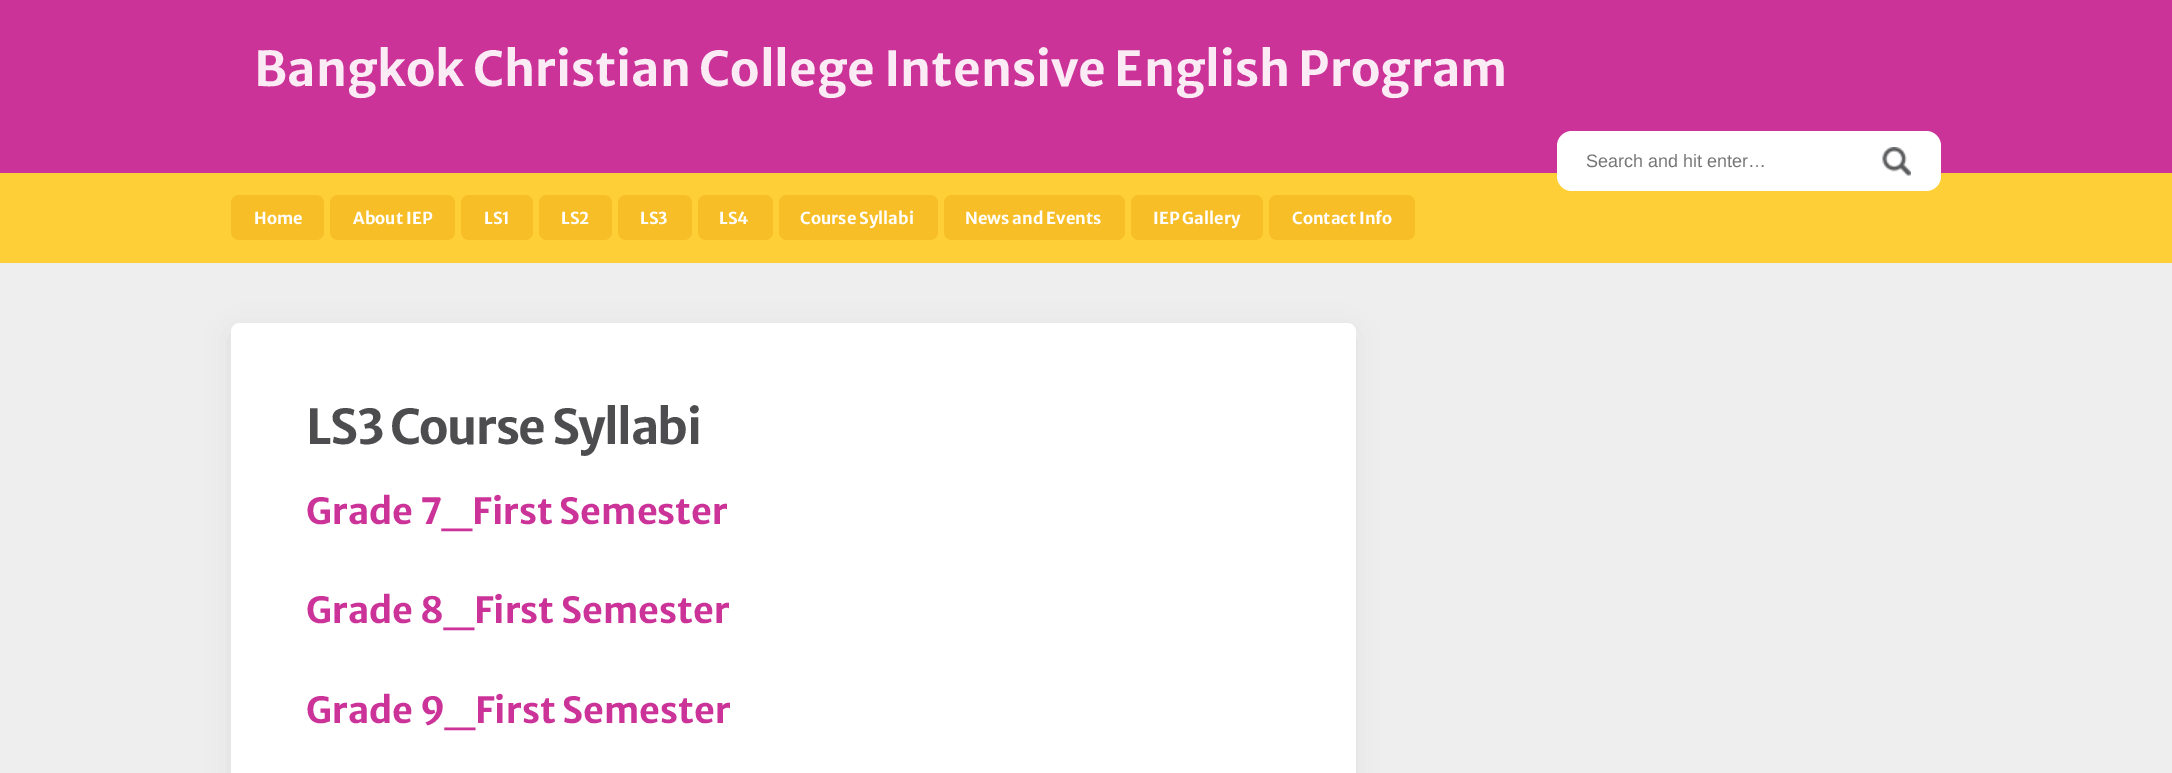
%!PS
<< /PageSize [2172 773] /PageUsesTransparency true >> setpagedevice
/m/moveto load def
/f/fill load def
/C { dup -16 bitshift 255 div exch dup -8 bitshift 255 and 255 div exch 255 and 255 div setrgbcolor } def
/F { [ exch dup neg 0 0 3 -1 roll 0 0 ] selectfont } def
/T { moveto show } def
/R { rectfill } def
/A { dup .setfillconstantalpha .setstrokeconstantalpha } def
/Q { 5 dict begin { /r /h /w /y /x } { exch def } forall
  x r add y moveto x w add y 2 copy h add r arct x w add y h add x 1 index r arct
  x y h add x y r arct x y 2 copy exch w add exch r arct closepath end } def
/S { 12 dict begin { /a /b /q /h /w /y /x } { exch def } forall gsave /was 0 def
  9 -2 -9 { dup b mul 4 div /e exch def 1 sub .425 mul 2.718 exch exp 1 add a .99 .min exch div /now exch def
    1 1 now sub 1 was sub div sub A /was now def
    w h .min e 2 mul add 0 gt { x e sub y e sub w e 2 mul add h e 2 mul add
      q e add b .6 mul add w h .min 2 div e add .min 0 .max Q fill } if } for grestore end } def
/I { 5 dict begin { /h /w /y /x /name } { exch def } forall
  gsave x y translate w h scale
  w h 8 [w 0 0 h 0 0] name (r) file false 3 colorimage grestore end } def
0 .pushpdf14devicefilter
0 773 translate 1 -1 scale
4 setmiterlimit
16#EEEEEE C
0 0 2172 773 R
16#CC3399 C
0 0 2172 173 R
/MerriweatherSans-Bold 48 F
16#FAEBF5 C
(Bangkok Christian College Intensive English Program) 254 86 T
16#FFCF38 C
0 173 2172 90 R
16#FFFFFF C
1557 131 384 60 15 Q f
/LiberationSans-Regular 18 F
16#757575 C
(Search and hit enter…) 1586 167 T
(1.rgb) 1882 147 29 29 I
16#F8BE27 C
231 195 93 45 8 Q f
/MerriweatherSans-Bold 16.5 F
16#FFFFFF C
(Home) 254 224 T
16#F8BE27 C
330 195 125 45 8 Q f
16#FFFFFF C
(About IEP) 353 224 T
16#F8BE27 C
461 195 72 45 8 Q f
16#FFFFFF C
(LS1) 484 224 T
16#F8BE27 C
539 195 73 45 8 Q f
16#FFFFFF C
(LS2) 561 224 T
16#F8BE27 C
618 195 74 45 8 Q f
16#FFFFFF C
(LS3) 640 224 T
16#F8BE27 C
698 195 75 45 8 Q f
16#FFFFFF C
(LS4) 719 224 T
16#F8BE27 C
779 195 159 45 8 Q f
16#FFFFFF C
(Course Syllabi) 800 224 T
16#F8BE27 C
944 195 181 45 8 Q f
16#FFFFFF C
(News and Events) 965 224 T
16#F8BE27 C
1131 195 132 45 8 Q f
16#FFFFFF C
(IEP Gallery) 1153 224 T
16#F8BE27 C
1269 195 146 45 8 Q f
16#FFFFFF C
(Contact Info) 1292 224 T
16#000000 C
237 336 1110 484 1.5 15 .1 S
16#FFFFFF C
231 323 1125 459 9 Q f
/MerriweatherSans-Bold 48 F
16#4D4D4F C
306 444 m -1.5 0 (LS3 Course Syllabi) ashow
/MerriweatherSans-Bold 36 F
16#CC3399 C
(Grade 7_First Semester) 306 524 T
(Grade 8_First Semester) 306 623 T
(Grade 9_First Semester) 306 723 T
.poppdf14devicefilter showpage
